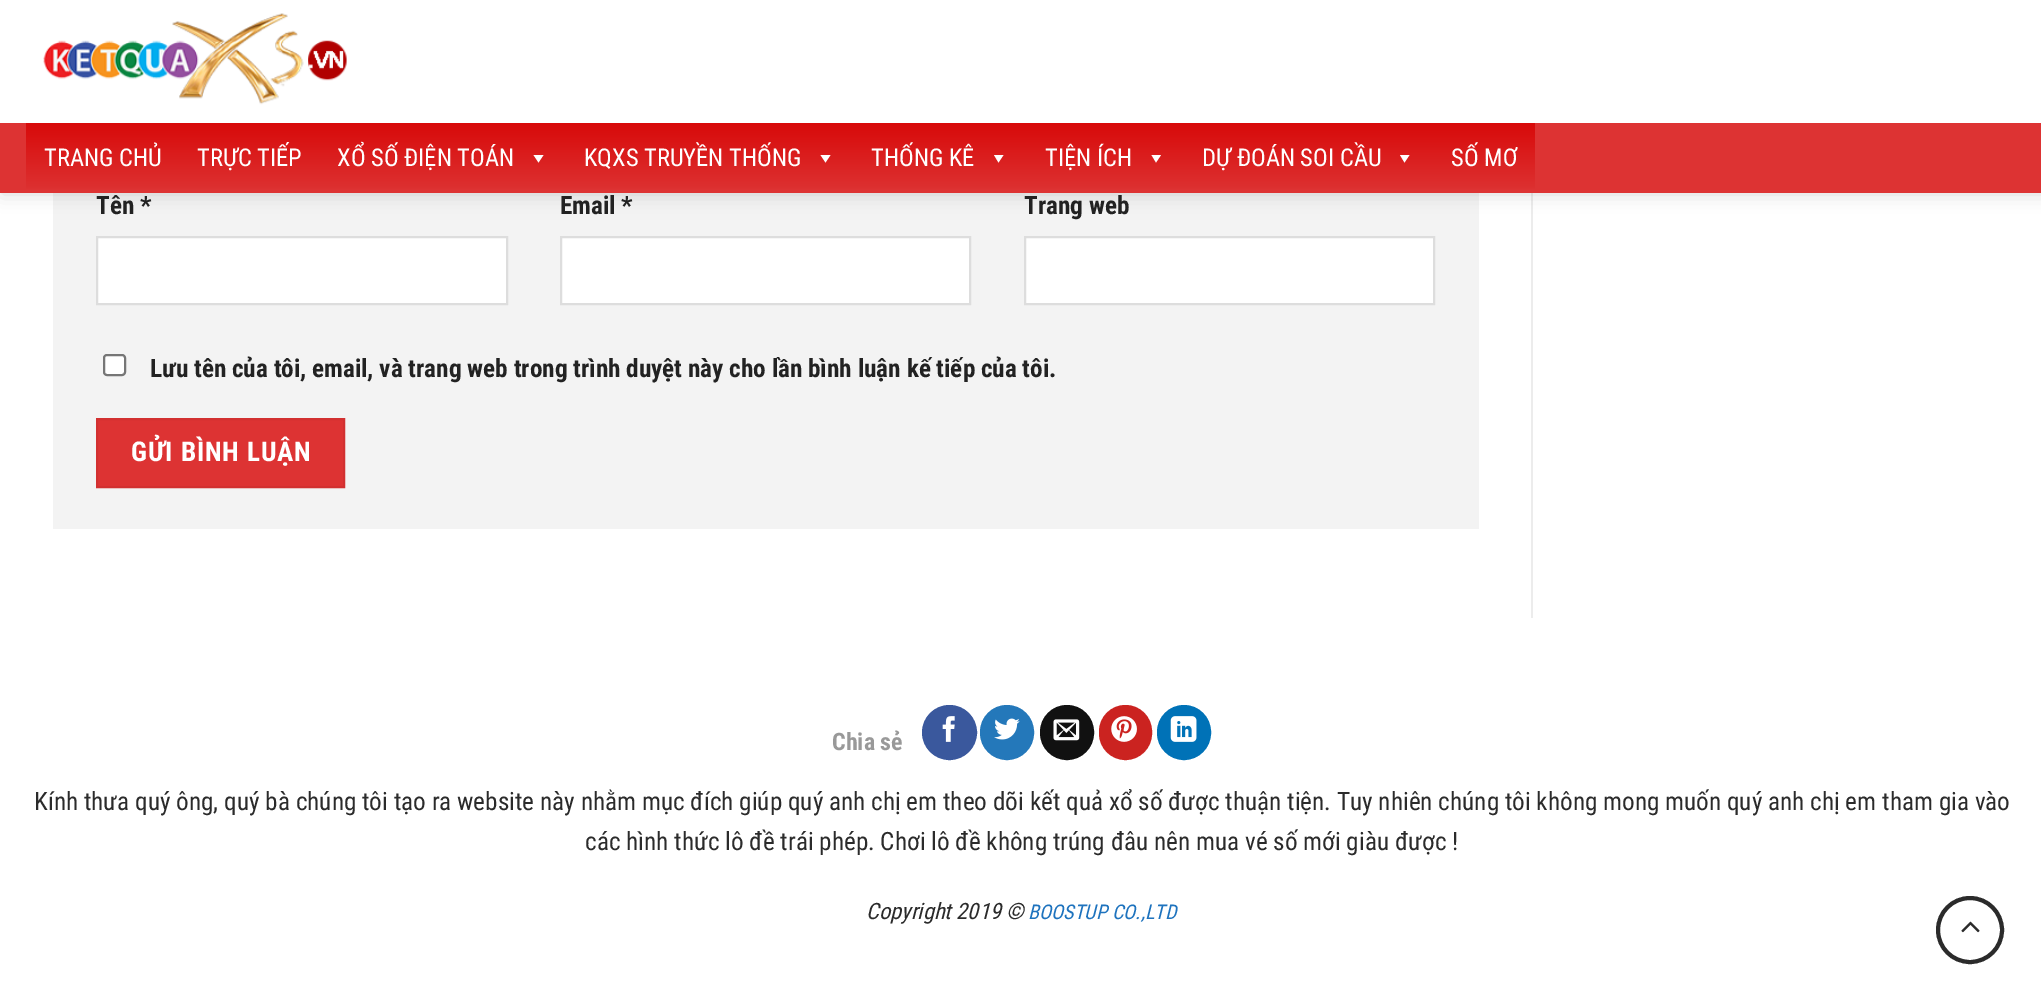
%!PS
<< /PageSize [2041 998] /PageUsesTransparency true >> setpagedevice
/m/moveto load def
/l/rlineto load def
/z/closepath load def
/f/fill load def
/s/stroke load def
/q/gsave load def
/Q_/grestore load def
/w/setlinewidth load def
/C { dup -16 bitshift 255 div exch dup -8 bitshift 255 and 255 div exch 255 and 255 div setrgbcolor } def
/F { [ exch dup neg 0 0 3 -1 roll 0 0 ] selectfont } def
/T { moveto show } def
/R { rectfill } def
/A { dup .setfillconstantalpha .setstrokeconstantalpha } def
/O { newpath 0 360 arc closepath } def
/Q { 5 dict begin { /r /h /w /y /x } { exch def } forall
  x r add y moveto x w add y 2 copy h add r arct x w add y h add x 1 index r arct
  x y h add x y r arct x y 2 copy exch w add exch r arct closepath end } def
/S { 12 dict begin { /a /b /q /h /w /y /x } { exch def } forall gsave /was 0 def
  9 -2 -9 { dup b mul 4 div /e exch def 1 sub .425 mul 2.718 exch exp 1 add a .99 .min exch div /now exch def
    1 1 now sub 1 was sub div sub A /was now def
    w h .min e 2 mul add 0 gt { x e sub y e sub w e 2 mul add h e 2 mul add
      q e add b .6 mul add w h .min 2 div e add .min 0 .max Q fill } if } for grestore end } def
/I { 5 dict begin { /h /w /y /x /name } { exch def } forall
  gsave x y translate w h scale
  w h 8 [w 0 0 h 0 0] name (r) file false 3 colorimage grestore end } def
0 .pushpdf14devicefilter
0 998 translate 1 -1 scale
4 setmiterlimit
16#FFFFFF C
0 0 2041 998 R
16#F3F3F3 C
53 193 1426 336 R
16#ECECEC C
1531 193 2 425 R
16#000000 C
2 2 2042 192 0 9 .15 S
16#FFFFFF C
0 0 2041 123 R
(1.rgb) 43 13 304 92 I
16#DD3333 C
0 123 2041 70 R
q 26 123 m 1509 0 l 0 66 l -1509 0 l z clip newpath
<< /ShadingType 2 /ColorSpace /DeviceRGB /Coords [781 122 781 193] /Extend [true true] /Function << /FunctionType 2 /Domain [0 1] /C0 [.847 .035 .035] /C1 [.867 .2 .2] /N 1 >> >> shfill Q_
/RobotoCondensed-Regular 24.5 F
16#FFFFFF C
(TRANG CHỦ) 44 166 T
(TRỰC TIẾP) 197 166 T
(XỔ SỐ ĐIỆN TOÁN) 337 166 T
543.5 155 m -5 7.5 l -5 -7.5 l z f
(KQXS TRUYỀN THỐNG) 584 166 T
830.5 155 m -5 7.5 l -5 -7.5 l z f
(THỐNG KÊ) 871 166 T
1003.5 155 m -5 7.5 l -4.5 -7.5 l z f
(TIỆN ÍCH) 1045 166 T
1161 155 m -5 7.5 l -4.5 -7.5 l z f
(DỰ ĐOÁN SOI CẦU) 1202 166 T
1409.5 155 m -5 7.5 l -4.5 -7.5 l z f
(SỐ MƠ) 1451 166 T
/RobotoCondensed-Bold 25.2 F
16#222222 C
(Tên *) 96 214 T
16#FFFFFF C
97 237 m 410 0 l 0 67 l -410 0 l z q f Q_
16#DDDDDD C
2 w
s
16#222222 C
(Email *) 560 214 T
16#FFFFFF C
561 237 m 409 0 l 0 67 l -409 0 l z q f Q_
16#DDDDDD C
s
16#222222 C
(Trang web) 1024 214 T
16#FFFFFF C
1025 237 m 409 0 l 0 67 l -409 0 l z q f Q_
16#DDDDDD C
s
16#FFFFFF C
104 355 21 20 3 Q q f Q_
16#767676 C
s
16#222222 C
(Lưu tên của tôi, email, và trang web trong trình duyệt này cho lần bình luận kế tiếp của tôi.) 150 377 T
16#DD3333 C
97 419 m 247 0 l 0 68 l -247 0 l z q f Q_
16#D23030 C
s
/RobotoCondensed-Bold 27.25 F
16#FFFFFF C
131 461 m .75 0 (GỬI BÌNH LUẬN) ashow
/RobotoCondensed-Bold 24 F
16#999999 C
(Chia sẻ) 832 750 T
16#3A589D C
949.5 732.5 26.5 O q f Q_
s
(2.rgb) 942 716 13 26 I
16#2478BA C
981 706 52 53 26 Q q f Q_
s
(3.rgb) 994 718 26 22 I
16#111111 C
1041 706 52 53 26 Q q f Q_
s
(4.rgb) 1053 719 27 22 I
16#CB2320 C
1100 706 51 53 25.5 Q q f Q_
s
(5.rgb) 1111 716 26 26 I
16#0072B7 C
1158 706 52 53 26 Q q f Q_
s
(6.rgb) 1170 716 27 26 I
/RobotoCondensed-Regular 25.2 F
16#2B2B2B C
(Kính thưa quý ông, quý bà chúng tôi tạo ra website này nhằm mục đích giúp quý anh chị em theo dõi kết quả xổ số được thuận tiện. Tuy nhiên chúng tôi không mong muốn quý anh chị em tham gia vào) 34 810 T
(các hình thức lô đề trái phép. Chơi lô đề không trúng đâu nên mua vé số mới giàu được !) 585 850 T
/RobotoCondensed-Italic 22.5 F
(Copyright 2019 ©) 866 919 T
/RobotoCondensed-Italic 20.25 F
16#1E73BE C
(BOOSTUP CO.,LTD) 1028 919 T
16#2B2B2B C
4 w
1970 930 32 O s
(7.rgb) 1961 921 19 12 I
.poppdf14devicefilter showpage
